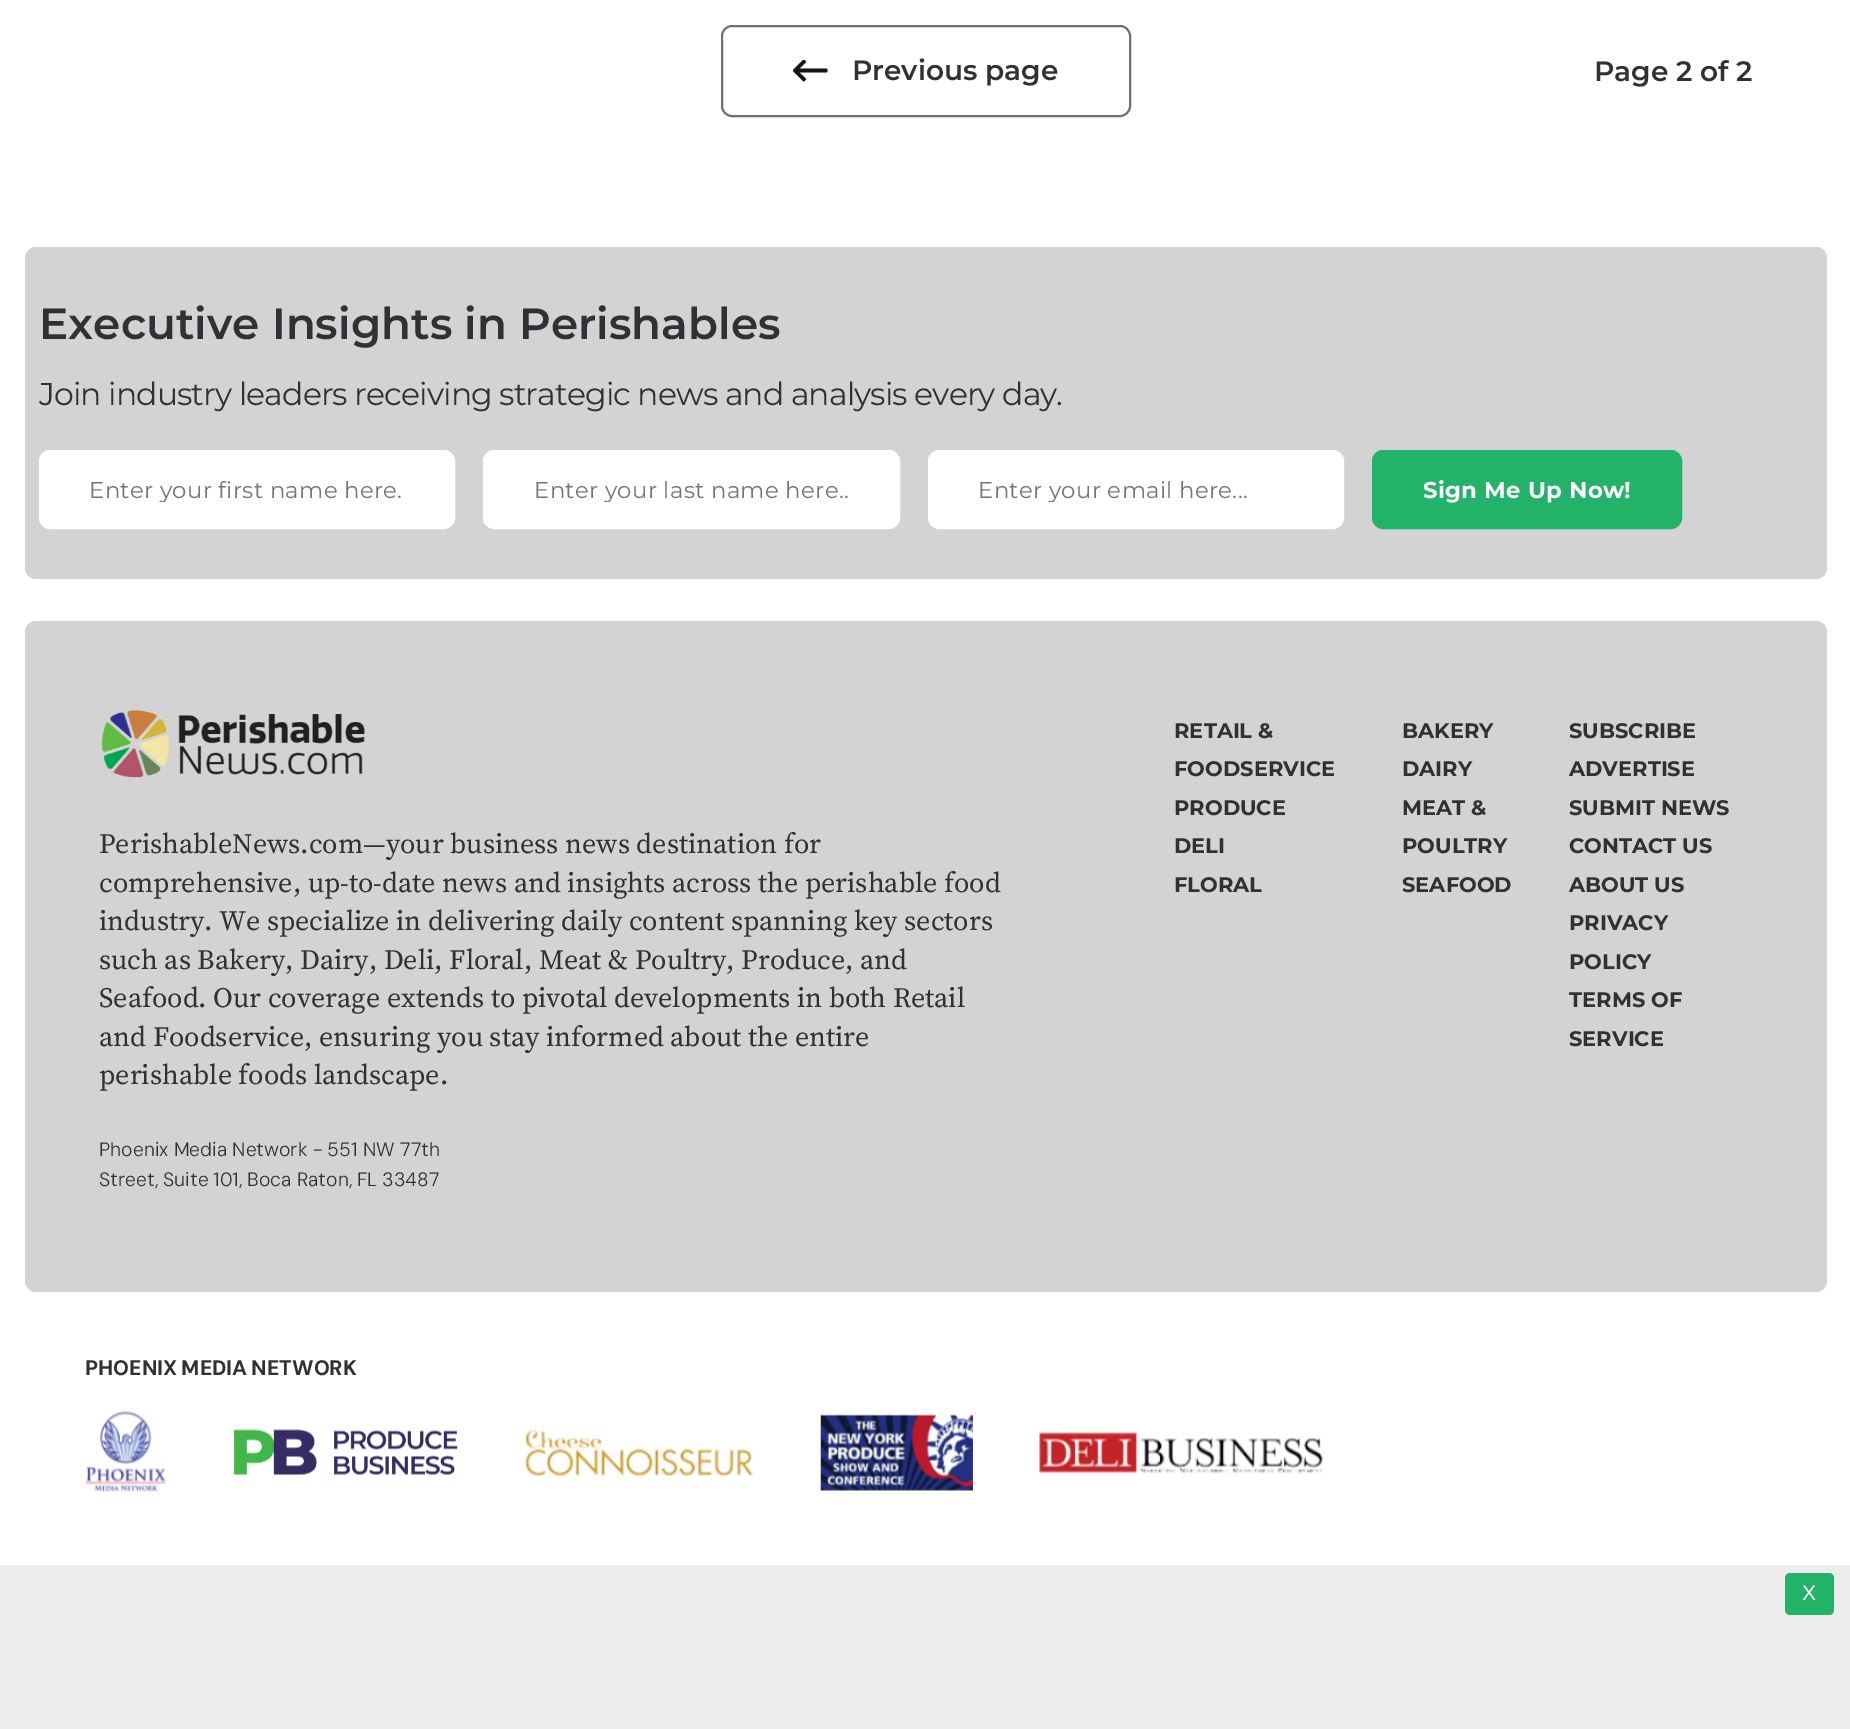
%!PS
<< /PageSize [1850 1729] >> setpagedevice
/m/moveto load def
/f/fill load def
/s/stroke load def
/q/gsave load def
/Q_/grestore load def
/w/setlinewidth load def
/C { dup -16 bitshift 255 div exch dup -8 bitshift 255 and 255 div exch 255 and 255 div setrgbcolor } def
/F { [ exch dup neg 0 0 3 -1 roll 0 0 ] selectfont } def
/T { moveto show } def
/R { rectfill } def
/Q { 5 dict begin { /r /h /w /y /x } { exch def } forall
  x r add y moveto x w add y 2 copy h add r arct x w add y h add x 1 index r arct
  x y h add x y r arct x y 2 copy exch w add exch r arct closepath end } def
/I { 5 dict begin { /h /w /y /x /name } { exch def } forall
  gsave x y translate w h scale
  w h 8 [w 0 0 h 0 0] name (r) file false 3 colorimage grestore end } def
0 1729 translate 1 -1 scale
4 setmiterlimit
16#FFFFFF C
0 0 1850 1729 R
16#707070 C
2 w
722 26 408 90 10 Q s
(1.rgb) 793 60 35 22 I
/Montserrat-SemiBold 28 F
16#303134 C
(Previous page) 852 80 T
(Page 2 of 2) 1594 81 T
16#D3D3D3 C
25 247 1802 332 11 Q f
/Montserrat-SemiBold 43.75 F
16#303134 C
(Executive Insights in Perishables) 39 339 T
/Montserrat-Regular 31.5 F
39 405 m -.88 0 (Join industry leaders receiving strategic news and analysis every day.) ashow
16#FFFFFF C
40 451 414 77 10 Q q f Q_
s
q
89 474 315 28 rectclip
/Montserrat-Regular 22.75 F
16#757575 C
89 498 m .35 0 (Enter your first name here.) ashow
Q_
484 451 415 77 10 Q q f Q_
s
q
534 474 315 28 rectclip
/Montserrat-Regular 22.75 F
16#757575 C
534 498 m .35 0 (Enter your last name here..) ashow
Q_
929 451 414 77 10 Q q f Q_
s
q
978 474 315 28 rectclip
/Montserrat-Regular 22.75 F
16#757575 C
978 498 m .35 0 (Enter your email here...) ashow
Q_
16#22B268 C
1373 451 308 77 10 Q q f Q_
s
/Montserrat-Bold 22.75 F
16#FFFFFF C
1423 498 m .35 0 (Sign Me Up Now!) ashow
16#D3D3D3 C
25 621 1802 671 11 Q f
(2.rgb) 101 710 264 68 I
/SourceSerif4-Regular 28 F
16#303134 C
(PerishableNews.com—your business news destination for) 99 853 T
(comprehensive, up-to-date news and insights across the perishable food) 99 892 T
(industry. We specialize in delivering daily content spanning key sectors) 99 930 T
(such as Bakery, Dairy, Deli, Floral, Meat & Poultry, Produce, and) 99 969 T
(Seafood. Our coverage extends to pivotal developments in both Retail) 99 1007 T
(and Foodservice, ensuring you stay informed about the entire) 99 1046 T
(perishable foods landscape.) 99 1084 T
/DMSans-Light 19.25 F
(Phoenix Media Network - 551 NW 77th) 99 1156 T
99 1186 m -.5 0 32 (Street, Suite 101, Boca Raton, FL 33487) widthshow
/Montserrat-Bold 21 F
(RETAIL &) 1174 738 T
(FOODSERVICE) 1174 776 T
(PRODUCE) 1174 815 T
(DELI) 1174 853 T
(FLORAL) 1174 892 T
(BAKERY) 1402 738 T
(DAIRY) 1402 776 T
(MEAT &) 1402 815 T
(POULTRY) 1402 853 T
(SEAFOOD) 1402 892 T
(SUBSCRIBE) 1569 738 T
(ADVERTISE) 1569 776 T
(SUBMIT NEWS) 1569 815 T
(CONTACT US) 1569 853 T
(ABOUT US) 1569 892 T
(PRIVACY) 1569 930 T
(POLICY) 1569 969 T
(TERMS OF) 1569 1007 T
(SERVICE) 1569 1046 T
/DMSans-Bold 21 F
85 1375 m -1 0 32 (PHOENIX MEDIA NETWORK) widthshow
(3.rgb) 85 1410 81 82 I
(4.rgb) 234 1429 224 47 I
(5.rgb) 525 1429 229 48 I
(6.rgb) 820 1414 153 77 I
(7.rgb) 1039 1432 284 42 I
16#EDEDED C
0 1565 1850 164 R
16#22B268 C
1785 1573 49 42 5 Q f
/LiberationSans-Regular 21 F
16#FFFFFF C
(X) 1802 1600 T
showpage
